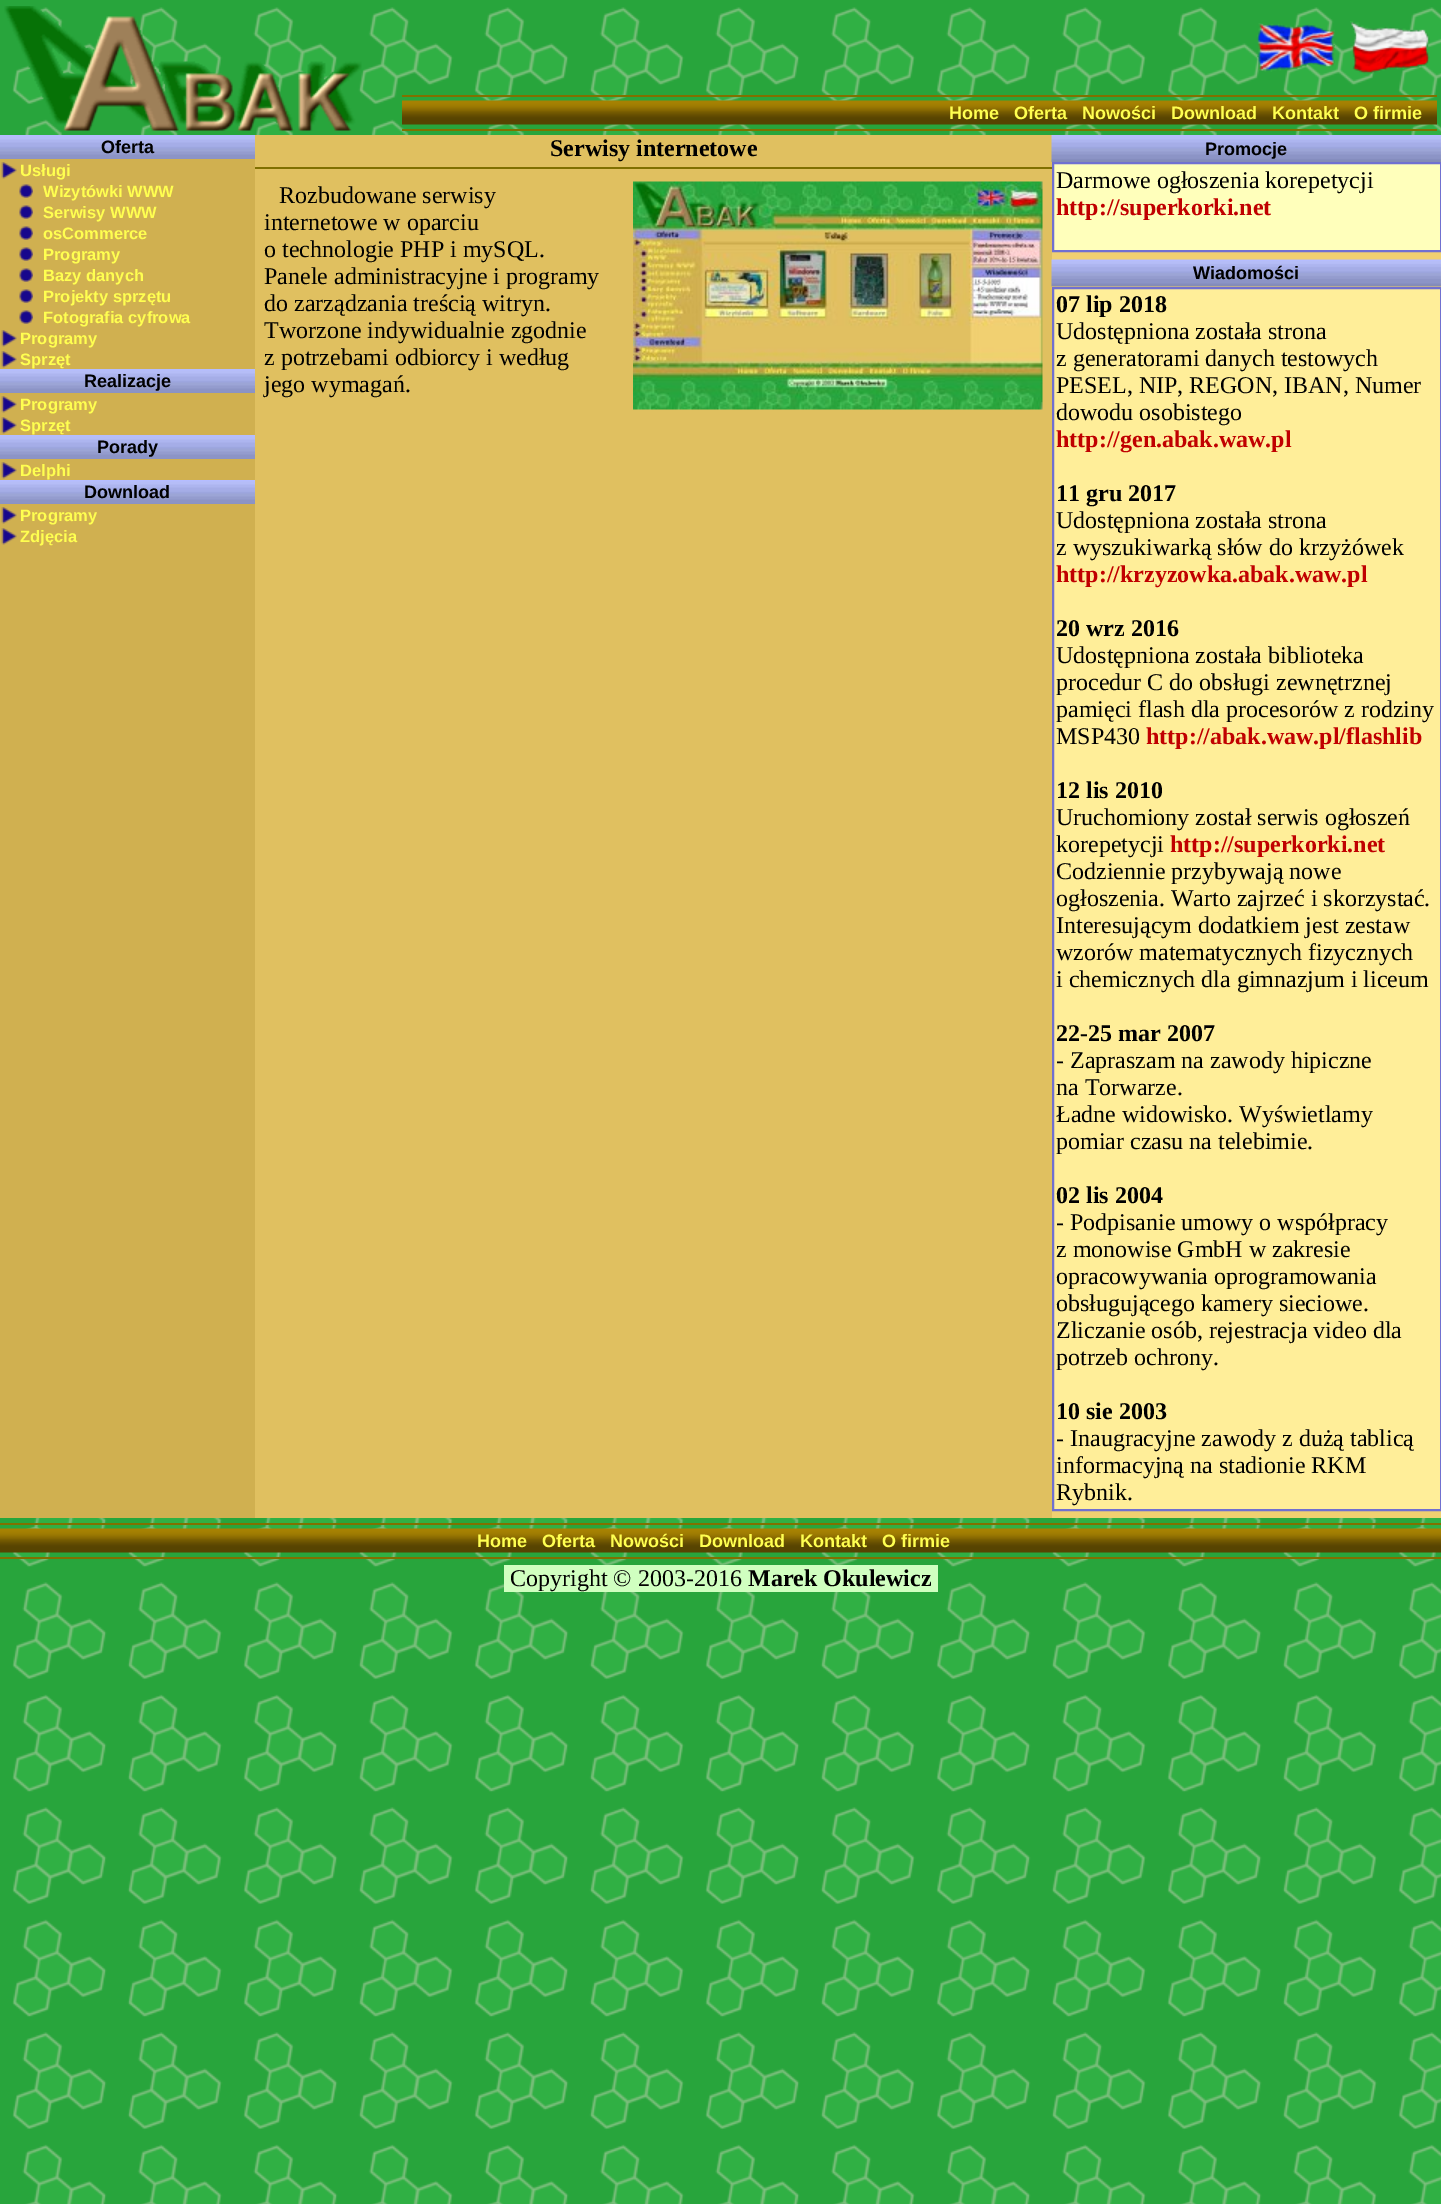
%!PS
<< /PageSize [1441 2204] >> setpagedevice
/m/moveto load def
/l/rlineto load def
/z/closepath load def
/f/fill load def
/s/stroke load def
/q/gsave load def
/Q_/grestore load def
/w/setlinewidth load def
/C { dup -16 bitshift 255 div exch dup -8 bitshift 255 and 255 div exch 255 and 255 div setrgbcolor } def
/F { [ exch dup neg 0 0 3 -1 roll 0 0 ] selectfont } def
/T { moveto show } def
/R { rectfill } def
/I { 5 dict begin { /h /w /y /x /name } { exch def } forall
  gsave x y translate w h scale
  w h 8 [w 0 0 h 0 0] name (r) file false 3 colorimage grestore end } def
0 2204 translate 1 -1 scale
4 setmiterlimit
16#28A53C C
0 0 1441 2204 R
(1.rgb) 12 7 1429 2197 I
(2.rgb) 4 6 358 125 I
(3.rgb) 1256 23 79 49 I
(4.rgb) 1350 21 80 53 I
16#807000 C
402 95 1035 2 R
(5.rgb) 402 100 1035 25 I
/LiberationSans-Bold 18 F
16#FFFF50 C
(Home) 949 119 T
(Oferta) 1014 119 T
(Nowości) 1082 119 T
(Download) 1171 119 T
(Kontakt) 1272 119 T
(O firmie) 1354 119 T
16#807000 C
402 129 1035 2 R
16#D0B050 C
0 159 255 1359 R
(6.rgb) 0 135 255 24 I
16#000000 C
(Oferta) 101 153 T
(7.rgb) 1 162 16 17 I
/LiberationSans-Bold 16.5 F
16#FFFF50 C
(Usługi) 20 176 T
(8.rgb) 19 184 14 14 I
(Wizytówki WWW) 43 197 T
(8.rgb) 19 205 14 14 I
(Serwisy WWW) 43 218 T
(8.rgb) 19 226 14 14 I
(osCommerce) 43 239 T
(8.rgb) 19 247 14 14 I
(Programy) 43 260 T
(8.rgb) 19 268 14 14 I
(Bazy danych) 43 281 T
(8.rgb) 19 289 14 14 I
(Projekty sprzętu) 43 302 T
(8.rgb) 19 310 14 14 I
(Fotografia cyfrowa) 43 323 T
(7.rgb) 1 330 16 17 I
(Programy) 20 344 T
(7.rgb) 1 351 16 17 I
(Sprzęt) 20 365 T
(6.rgb) 0 369 255 24 I
/LiberationSans-Bold 18 F
16#000000 C
(Realizacje) 84 387 T
(7.rgb) 1 396 16 17 I
/LiberationSans-Bold 16.5 F
16#FFFF50 C
(Programy) 20 410 T
(7.rgb) 1 417 16 17 I
(Sprzęt) 20 431 T
(6.rgb) 0 435 255 24 I
/LiberationSans-Bold 18 F
16#000000 C
(Porady) 97 453 T
(7.rgb) 1 462 16 17 I
/LiberationSans-Bold 16.5 F
16#FFFF50 C
(Delphi) 20 476 T
(6.rgb) 0 480 255 24 I
/LiberationSans-Bold 18 F
16#000000 C
(Download) 84 498 T
(7.rgb) 1 507 16 17 I
/LiberationSans-Bold 16.5 F
16#FFFF50 C
(Programy) 20 521 T
(7.rgb) 1 528 16 17 I
(Zdjęcia) 20 542 T
16#E0C060 C
255 135 797 1383 R
/LiberationSerif-Bold 24 F
16#000000 C
(Serwisy internetowe) 550 156 T
16#807000 C
255 167 797 2 R
/LiberationSerif-Regular 24 F
16#000000 C
(Rozbudowane serwisy) 279 203 T
(internetowe w oparciu) 264 230 T
(o technologie PHP i mySQL.) 264 257 T
(Panele administracyjne i programy) 264 284 T
(do zarządzania treścią witryn.) 264 311 T
(Tworzone indywidualnie zgodnie) 264 338 T
(z potrzebami odbiorcy i według) 264 365 T
(jego wymagań.) 264 392 T
(9.rgb) 633 181 410 229 I
16#F0D070 C
1052 252 389 1266 R
(10.rgb) 1051 135 390 27 I
/LiberationSans-Bold 18 F
16#000000 C
(Promocje) 1205 155 T
16#FFFFBB C
1053 163 m 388 0 l 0 88 l -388 0 l z q f Q_
16#7070D0 C
2 w
s
/LiberationSerif-Regular 24 F
16#000000 C
(Darmowe ogłoszenia korepetycji) 1056 188 T
/LiberationSerif-Bold 24 F
16#C00000 C
(http://superkorki.net) 1056 215 T
(11.rgb) 1051 259 390 28 I
/LiberationSans-Bold 18 F
16#000000 C
(Wiadomości) 1193 279 T
16#FFEE99 C
1053 288 m 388 0 l 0 1222 l -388 0 l z q f Q_
16#7070D0 C
s
/LiberationSerif-Bold 24 F
16#000000 C
(07 lip 2018) 1056 312 T
/LiberationSerif-Regular 24 F
(Udostępniona została strona) 1056 339 T
(z generatorami danych testowych) 1056 366 T
(PESEL, NIP, REGON, IBAN, Numer) 1056 393 T
(dowodu osobistego) 1056 420 T
/LiberationSerif-Bold 24 F
16#C00000 C
(http://gen.abak.waw.pl) 1056 447 T
16#000000 C
(11 gru 2017) 1056 501 T
/LiberationSerif-Regular 24 F
(Udostępniona została strona) 1056 528 T
(z wyszukiwarką słów do krzyżówek) 1056 555 T
/LiberationSerif-Bold 24 F
16#C00000 C
(http://krzyzowka.abak.waw.pl) 1056 582 T
16#000000 C
(20 wrz 2016) 1056 636 T
/LiberationSerif-Regular 24 F
(Udostępniona została biblioteka) 1056 663 T
(procedur C do obsługi zewnętrznej) 1056 690 T
(pamięci flash dla procesorów z rodziny) 1056 717 T
(MSP430) 1056 744 T
/LiberationSerif-Bold 24 F
16#C00000 C
(http://abak.waw.pl/flashlib) 1146 744 T
16#000000 C
(12 lis 2010) 1056 798 T
/LiberationSerif-Regular 24 F
(Uruchomiony został serwis ogłoszeń) 1056 825 T
(korepetycji) 1056 852 T
/LiberationSerif-Bold 24 F
16#C00000 C
(http://superkorki.net) 1170 852 T
/LiberationSerif-Regular 24 F
16#000000 C
(Codziennie przybywają nowe) 1056 879 T
(ogłoszenia. Warto zajrzeć i skorzystać.) 1056 906 T
(Interesującym dodatkiem jest zestaw) 1056 933 T
(wzorów matematycznych fizycznych) 1056 960 T
(i chemicznych dla gimnazjum i liceum) 1056 987 T
/LiberationSerif-Bold 24 F
(22-25 mar 2007) 1056 1041 T
/LiberationSerif-Regular 24 F
(- Zapraszam na zawody hipiczne) 1056 1068 T
(na Torwarze.) 1056 1095 T
(Ładne widowisko. Wyświetlamy) 1056 1122 T
(pomiar czasu na telebimie.) 1056 1149 T
/LiberationSerif-Bold 24 F
(02 lis 2004) 1056 1203 T
/LiberationSerif-Regular 24 F
(- Podpisanie umowy o współpracy) 1056 1230 T
(z monowise GmbH w zakresie) 1056 1257 T
(opracowywania oprogramowania) 1056 1284 T
(obsługującego kamery sieciowe.) 1056 1311 T
(Zliczanie osób, rejestracja video dla) 1056 1338 T
(potrzeb ochrony.) 1056 1365 T
/LiberationSerif-Bold 24 F
(10 sie 2003) 1056 1419 T
/LiberationSerif-Regular 24 F
(- Inaugracyjne zawody z dużą tablicą) 1056 1446 T
(informacyjną na stadionie RKM) 1056 1473 T
(Rybnik.) 1056 1500 T
16#807000 C
0 1523 1441 2 R
(12.rgb) 0 1528 1441 25 I
/LiberationSans-Bold 18 F
16#FFFF50 C
(Home) 477 1547 T
(Oferta) 542 1547 T
(Nowości) 610 1547 T
(Download) 699 1547 T
(Kontakt) 800 1547 T
(O firmie) 882 1547 T
16#807000 C
0 1557 1441 2 R
16#D0FFC0 C
504 1565 434 27 R
/LiberationSerif-Regular 24 F
16#000000 C
(Copyright © 2003-2016) 510 1586 T
/LiberationSerif-Bold 24 F
(Marek Okulewicz) 748 1586 T
showpage
